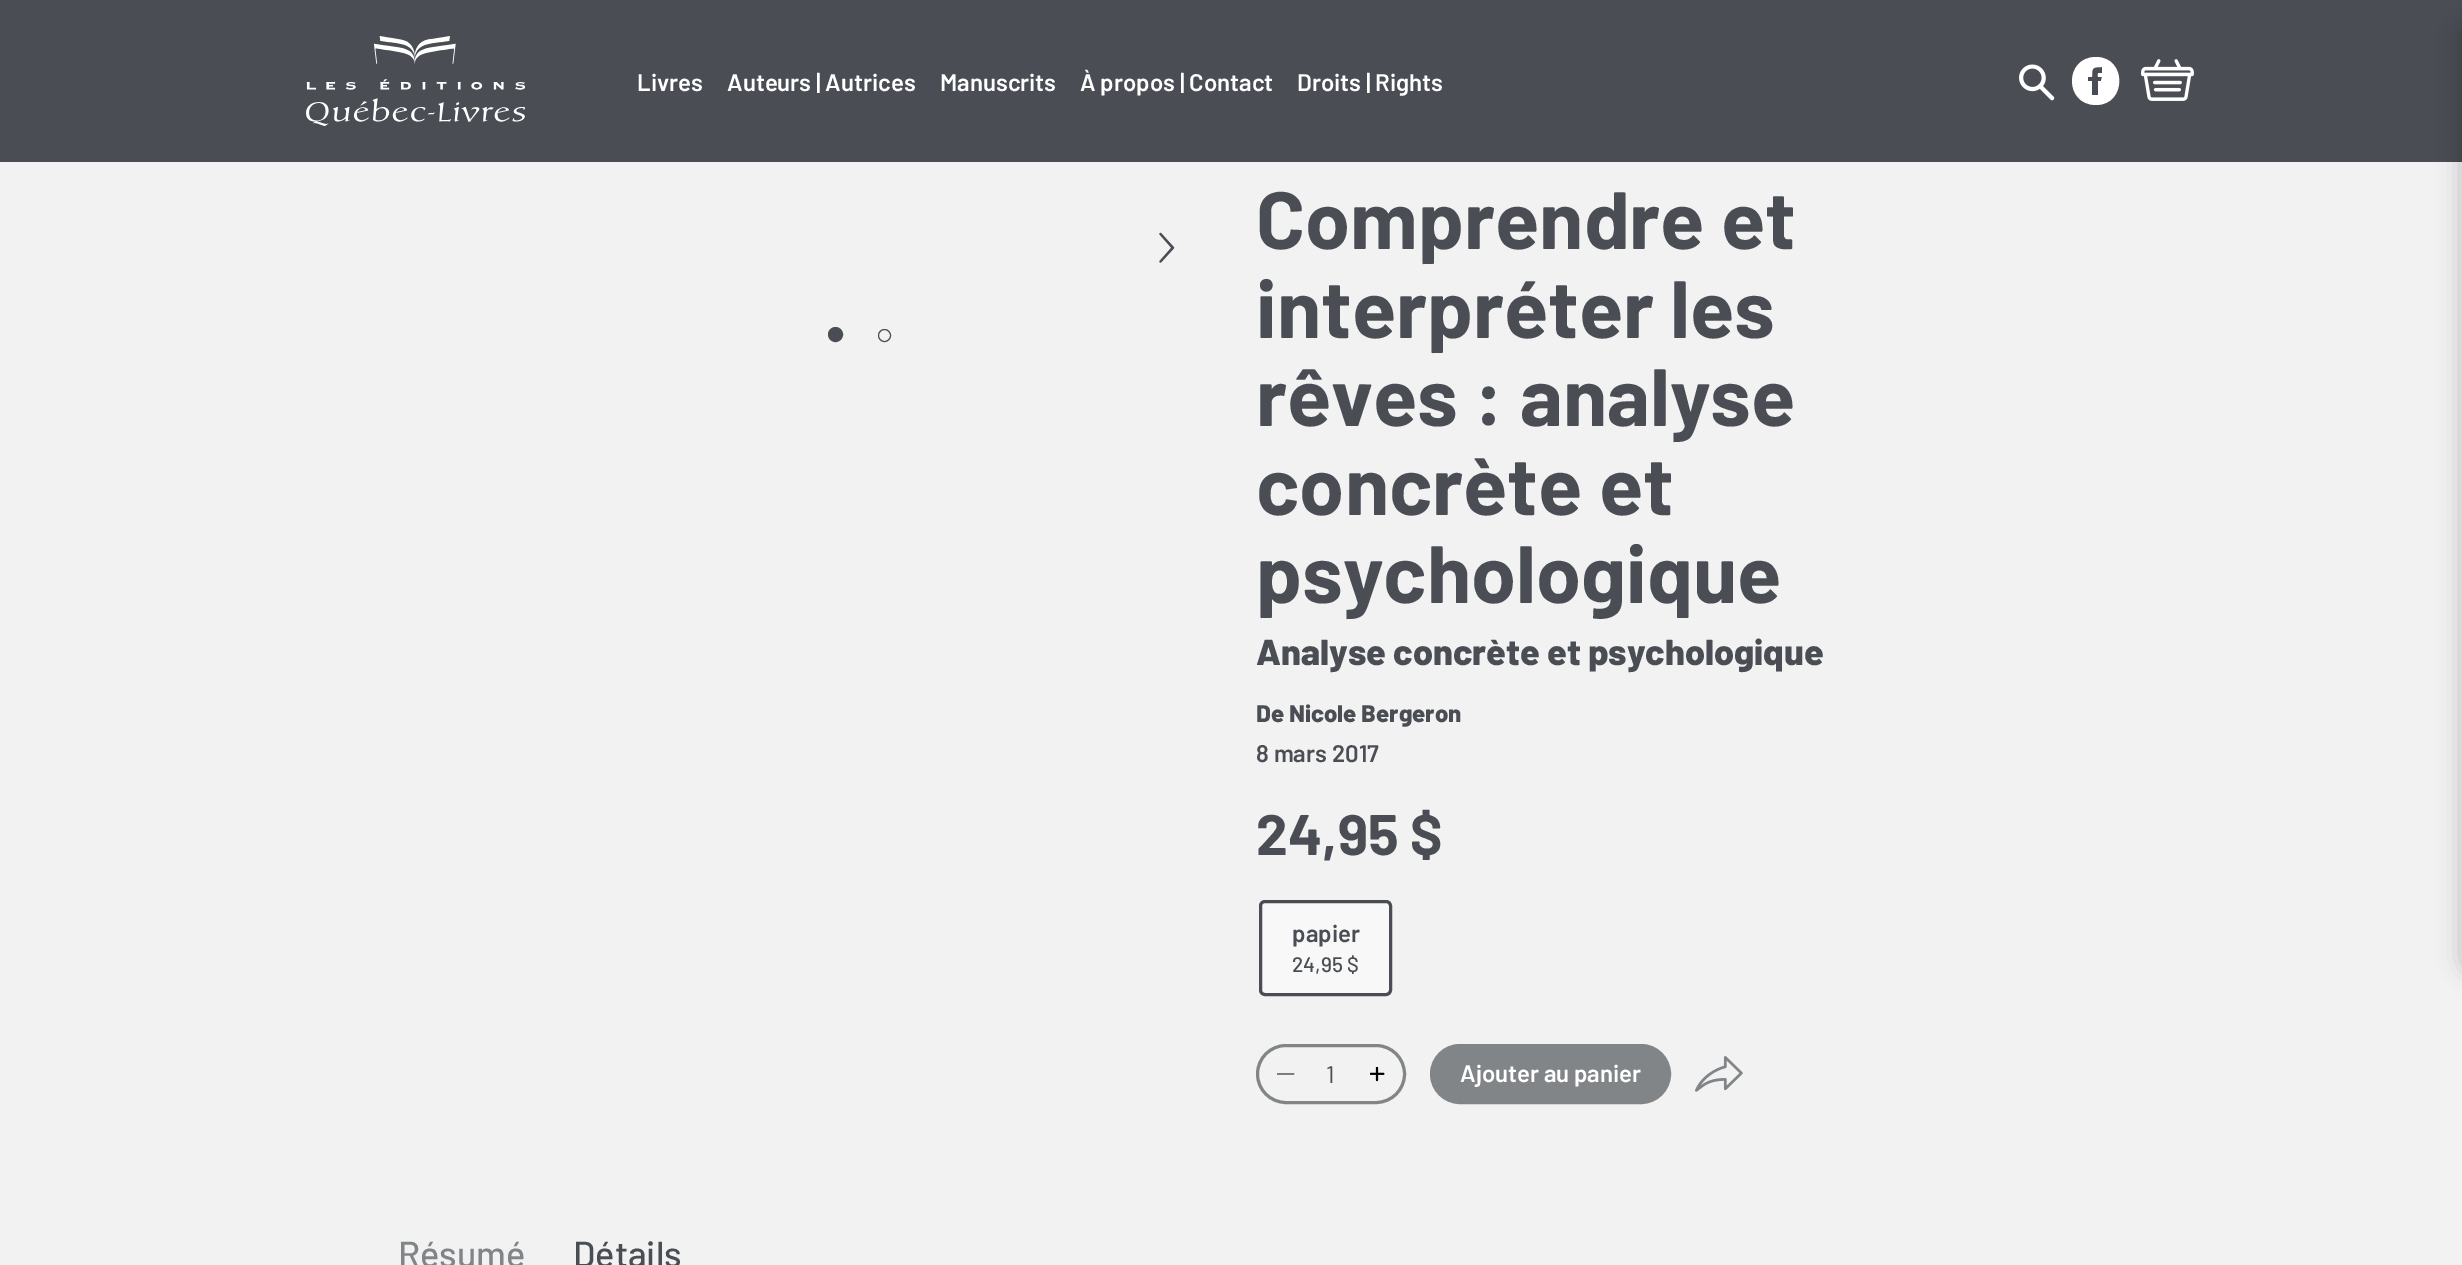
%!PS
<< /PageSize [2462 1265] /PageUsesTransparency true >> setpagedevice
/m/moveto load def
/l/rlineto load def
/c/rcurveto load def
/z/closepath load def
/f/fill load def
/s/stroke load def
/q/gsave load def
/Q_/grestore load def
/w/setlinewidth load def
/C { dup -16 bitshift 255 div exch dup -8 bitshift 255 and 255 div exch 255 and 255 div setrgbcolor } def
/F { [ exch dup neg 0 0 3 -1 roll 0 0 ] selectfont } def
/T { moveto show } def
/R { rectfill } def
/A { dup .setfillconstantalpha .setstrokeconstantalpha } def
/O { newpath 0 360 arc closepath } def
/Q { 5 dict begin { /r /h /w /y /x } { exch def } forall
  x r add y moveto x w add y 2 copy h add r arct x w add y h add x 1 index r arct
  x y h add x y r arct x y 2 copy exch w add exch r arct closepath end } def
/S { 12 dict begin { /a /b /q /h /w /y /x } { exch def } forall gsave /was 0 def
  9 -2 -9 { dup b mul 4 div /e exch def 1 sub .425 mul 2.718 exch exp 1 add a .99 .min exch div /now exch def
    1 1 now sub 1 was sub div sub A /was now def
    w h .min e 2 mul add 0 gt { x e sub y e sub w e 2 mul add h e 2 mul add
      q e add b .6 mul add w h .min 2 div e add .min 0 .max Q fill } if } for grestore end } def
/I { 5 dict begin { /h /w /y /x /name } { exch def } forall
  gsave x y translate w h scale
  w h 8 [w 0 0 h 0 0] name (r) file false 3 colorimage grestore end } def
0 .pushpdf14devicefilter
0 1265 translate 1 -1 scale
4 setmiterlimit
16#F2F2F2 C
0 0 2462 1265 R
16#4A4E54 C
0 0 2462 162 R
(1.rgb) 306 36 219 90 I
/Barlow-SemiBold 24 F
16#FFFFFF C
(Livres) 637 91 T
(Auteurs | Autrices) 727 91 T
(Manuscrits) 940 91 T
(À propos | Contact) 1080 91 T
(Droits | Rights) 1297 91 T
(2.rgb) 2019 64 36 37 I
2096 57 m -32 0 -32 48 0 48 c 31 0 31 -48 0 -48 c z 2102 73 m -5 0 -4 0 -4 4 c 4 0 l -1 4 l -3 0 l 0 14 l -6 0 l 0 -14 l -4 0 l 0 -4 l 4 0 l 0 -9 0 -10 10 -10 c z f
(3.rgb) 2141 59 53 42 I
16#000000 C
2460 18 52 957 17 11 .2 S
(4.rgb) 1159 232 16 31 I
16#4A4E54 C
835.5 334.5 6.5 O q f Q_
2 w
s
1 w
884.5 335.5 6 O s
/Barlow-Bold 81 F
(Comprendre et) 1256 249 T
(interpréter les) 1256 338 T
(rêves : analyse) 1256 426 T
(concrète et) 1256 515 T
(psychologique) 1256 603 T
/Barlow-ExtraBold 36 F
(Analyse concrète et psychologique) 1256 665 T
/Barlow-ExtraBold 24 F
(De Nicole Bergeron) 1256 722 T
/Barlow-SemiBold 24 F
(8 mars 2017) 1256 762 T
/Barlow-Bold 57 F
(24,95 $) 1256 855 T
16#F8F8F8 C
1260.5 901.5 130 93 4.5 Q q f Q_
16#4A4E54 C
3 w
s
/Barlow-SemiBold 24 F
(papier) 1292 942 T
/Barlow-Medium 21 F
(24,95 $) 1292 972 T
16#818587 C
1257.5 1045.5 147 57 28.5 Q s
(5.rgb) 1277 1073 18 2 I
/Barlow-Regular 24 F
16#4A4E54 C
(1) 1326 1083 T
(6.rgb) 1370 1067 15 15 I
16#818587 C
1431.5 1045.5 238 57 28.5 Q q f Q_
s
/Barlow-SemiBold 24 F
16#FFFFFF C
(Ajouter au panier) 1460 1082 T
(7.rgb) 1695 1056 48 36 I
/Barlow-Medium 36 F
16#818587 C
(Résumé) 398 1267 T
16#4A4E54 C
(Détails) 573 1267 T
.poppdf14devicefilter showpage
